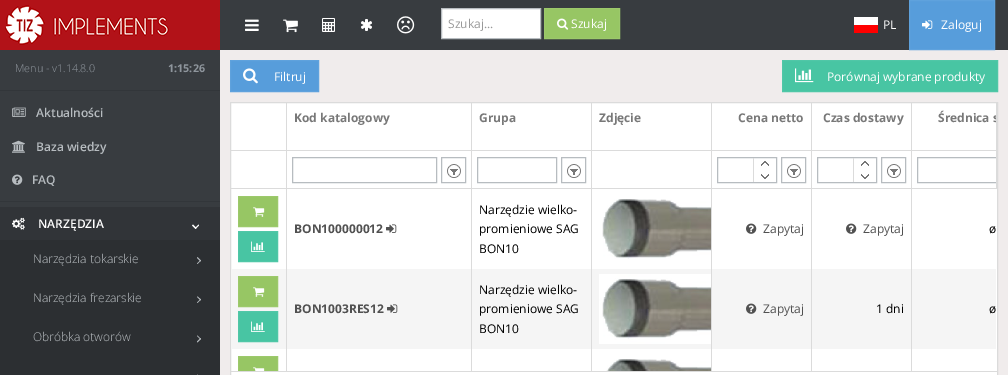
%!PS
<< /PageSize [1008 375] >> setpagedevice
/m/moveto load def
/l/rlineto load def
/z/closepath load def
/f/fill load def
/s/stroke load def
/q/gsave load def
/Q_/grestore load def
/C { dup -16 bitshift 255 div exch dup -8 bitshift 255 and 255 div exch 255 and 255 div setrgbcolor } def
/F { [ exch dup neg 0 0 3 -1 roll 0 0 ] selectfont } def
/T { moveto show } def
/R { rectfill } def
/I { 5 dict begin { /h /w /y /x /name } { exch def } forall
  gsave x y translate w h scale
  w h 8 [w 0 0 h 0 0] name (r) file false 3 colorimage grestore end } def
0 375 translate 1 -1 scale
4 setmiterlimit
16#F0ECEC C
0 0 1008 375 R
16#B21218 C
0 0 220 50 R
(1.rgb) 5 5 164 40 I
16#383C40 C
220 0 788 50 R
(2.rgb) 245 19 14 12 I
(3.rgb) 283 19 15 14 I
(4.rgb) 322 18 13 14 I
(5.rgb) 360 19 12 12 I
(6.rgb) 397 16 18 18 I
16#FFFFFF C
441.5 8.5 m 99 0 l 0 30 l -99 0 l z q f Q_
16#B7BCC0 C
s
/OpenSans-Regular 12 F
16#999999 C
(Szukaj...) 448 28 T
16#97C664 C
544.5 8.5 m 75 0 l 0 30 l -75 0 l z q f Q_
16#9CC96B C
s
(7.rgb) 557 18 12 12 I
16#FFFFFF C
(Szukaj) 571 28 T
(8.rgb) 854 17 24 16 I
(PL) 883 29 T
16#579DDB C
909.5 .5 m 85 0 l 0 49 l -85 0 l z q f Q_
16#5FA2DD C
s
(9.rgb) 922 20 11 9 I
16#FFFFFF C
(Zaloguj) 941 29 T
16#383C40 C
0 50 220 157 R
/OpenSans-Light 10.75 F
16#8E959C C
(Menu - v1.14.8.0) 15 72 T
/OpenSans-Bold 10.75 F
(1:15:26) 168 72 T
16#32363A C
0 90 220 1 R
(10.rgb) 12 107 14 10 I
/OpenSans-SemiBold 12 F
16#B7BCC0 C
(Aktualności) 36 117 T
(11.rgb) 12 140 13 13 I
(Baza wiedzy) 36 151 T
(12.rgb) 12 174 11 11 I
(FAQ) 32 184 T
16#32363A C
0 201 220 1 R
16#313438 C
0 207 220 33 R
(13.rgb) 12 217 13 13 I
16#FFFFFF C
(NARZĘDZIA) 38 228 T
199 225.5 m -3.5 3.5 l -.5 -1 l 3.5 -3.5 l z f
196.5 228 m -1 1 l -3.5 -3.5 l 1 -1 l z f
16#2C2F32 C
0 240 220 135 R
/OpenSans-Light 12 F
16#B7BCC0 C
(Narzędzia tokarskie) 33 263 T
197.5 257 m 3.5 3.5 l -.5 1 l -3.5 -3.5 l z f
200.5 260 m .5 .5 l -3.5 3.5 l -.5 -.5 l z 197.5 296.5 m 3.5 3 l -.5 1 l -3.5 -3.5 l z f
(Narzędzia frezarskie) 33 302 T
200.5 299 m .5 .5 l -3.5 3.5 l -.5 -.5 l z 197.5 335.5 m 3.5 3.5 l -.5 .5 l -3.5 -3.5 l z f
(Obróbka otworów) 33 341 T
200.5 338 m .5 1 l -3.5 3.5 l -.5 -1 l z 197.5 374.5 m 3.5 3.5 l -.5 .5 l -3.5 -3 l z f
16#579DDB C
230.5 60.5 m 88 0 l 0 31 l -88 0 l z q f Q_
16#5FA2DD C
s
(14.rgb) 243 68 15 16 I
/OpenSans-Regular 12 F
16#FFFFFF C
(Filtruj) 274 81 T
16#48C5A3 C
782.5 60.5 m 215 0 l 0 31 l -215 0 l z q f Q_
16#50C7A7 C
s
(15.rgb) 795 68 19 15 I
16#FFFFFF C
(Porównaj wybrane produkty) 827 81 T
230.5 102.5 m 767 0 l 0 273 l -767 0 l z q f Q_
16#DBDBDB C
s
231 188 766 1 R
911 103 1 85 R
231 150 680 1 R
286 103 1 85 R
/OpenSans-Bold 12 F
16#787878 C
(Kod katalogowy) 294 122 T
16#DBDBDB C
471 103 1 85 R
16#787878 C
(Grupa) 479 122 T
16#DBDBDB C
591 103 1 85 R
16#787878 C
(Zdjęcie) 599 122 T
16#DBDBDB C
711 103 1 85 R
16#787878 C
(Cena netto) 738 122 T
16#DBDBDB C
811 103 1 85 R
16#787878 C
(Czas dostawy) 823 122 T
16#B7BCC0 C
292.5 157.5 144 25 rectstroke
441.5 157.5 24 25 rectstroke
(16.rgb) 447 164 14 14 I
477.5 157.5 79 25 rectstroke
561.5 157.5 24 25 rectstroke
(16.rgb) 567 164 14 14 I
717.5 157.5 59 25 rectstroke
16#DBDBDB C
753 158 1 24 R
(17.rgb) 761 161 8 5 I
(18.rgb) 761 174 8 5 I
16#B7BCC0 C
781.5 157.5 24 25 rectstroke
(16.rgb) 787 164 14 14 I
817.5 157.5 59 25 rectstroke
16#DBDBDB C
853 158 1 24 R
(17.rgb) 861 161 8 5 I
(18.rgb) 861 174 8 5 I
16#B7BCC0 C
881.5 157.5 24 25 rectstroke
(16.rgb) 887 164 14 14 I
16#DBDBDB C
996 103 1 85 R
912 150 84 1 R
q
912 103 84 47 rectclip
16#787878 C
(Średnica s) 938 122 T
Q_
q
912 151 84 37 rectclip
16#B7BCC0 C
917.5 157.5 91 25 rectstroke
Q_
911 189 1 182 R
16#97C664 C
238.5 196.5 m 39 0 l 0 30 l -39 0 l z q f Q_
16#9CC96B C
s
(19.rgb) 253 207 12 10 I
16#48C5A3 C
238.5 231.5 m 39 0 l 0 30 l -39 0 l z q f Q_
16#50C7A7 C
s
(20.rgb) 251 241 14 11 I
16#F5F5F5 C
231 269 680 80 R
16#DBDBDB C
286 189 1 182 R
16#515151 C
(BON100000012) 294 233 T
(21.rgb) 386 224 11 9 I
16#DBDBDB C
471 189 1 182 R
/OpenSans-Regular 12 F
16#000000 C
(Narzędzie wielko-) 479 214 T
(promieniowe SAG) 479 233 T
(BON10) 479 253 T
16#DBDBDB C
591 189 1 182 R
(22.rgb) 602 199 109 60 I
711 189 1 182 R
(23.rgb) 746 223 11 11 I
16#515151 C
(Zapytaj) 763 233 T
16#DBDBDB C
811 189 1 182 R
(23.rgb) 846 223 11 11 I
16#515151 C
(Zapytaj) 863 233 T
16#97C664 C
238.5 276.5 m 39 0 l 0 30 l -39 0 l z q f Q_
16#9CC96B C
s
(19.rgb) 253 287 12 10 I
16#48C5A3 C
238.5 311.5 m 39 0 l 0 30 l -39 0 l z q f Q_
16#50C7A7 C
s
(20.rgb) 251 321 14 11 I
/OpenSans-Bold 12 F
16#515151 C
(BON1003RES12) 294 313 T
(24.rgb) 387 304 11 9 I
/OpenSans-Regular 12 F
16#000000 C
(Narzędzie wielko-) 479 294 T
(promieniowe SAG) 479 313 T
(BON10) 479 333 T
(25.rgb) 599 274 112 70 I
(26.rgb) 746 303 11 11 I
16#515151 C
(Zapytaj) 763 313 T
16#000000 C
(1 dni) 876 313 T
16#97C664 C
239 357 38 14 R
q
231 349 55 22 rectclip
16#9CC96B C
238.5 356.5 39 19 rectstroke
Q_
(27.rgb) 253 367 12 4 I
(28.rgb) 606 359 105 12 I
16#000000 C
(ø) 989 233 T
16#F5F5F5 C
912 269 84 80 R
16#000000 C
(ø) 989 313 T
16#DBDBDB C
231 371 766 1 R
showpage
